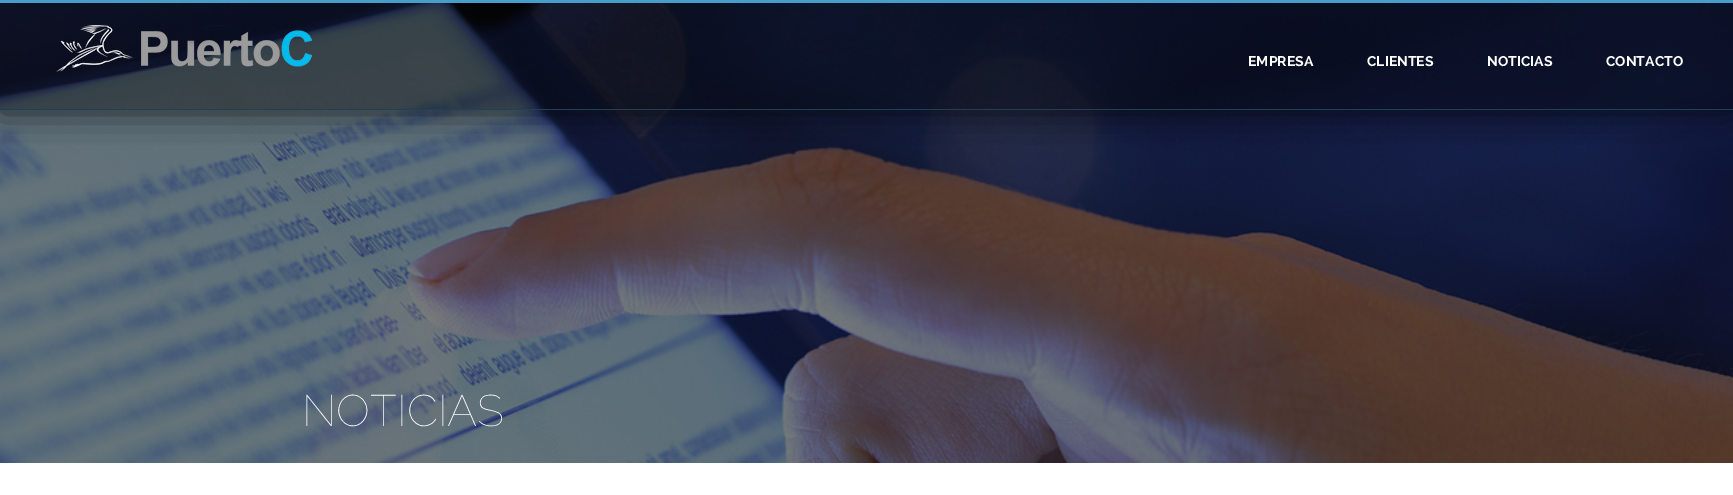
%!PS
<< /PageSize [1733 495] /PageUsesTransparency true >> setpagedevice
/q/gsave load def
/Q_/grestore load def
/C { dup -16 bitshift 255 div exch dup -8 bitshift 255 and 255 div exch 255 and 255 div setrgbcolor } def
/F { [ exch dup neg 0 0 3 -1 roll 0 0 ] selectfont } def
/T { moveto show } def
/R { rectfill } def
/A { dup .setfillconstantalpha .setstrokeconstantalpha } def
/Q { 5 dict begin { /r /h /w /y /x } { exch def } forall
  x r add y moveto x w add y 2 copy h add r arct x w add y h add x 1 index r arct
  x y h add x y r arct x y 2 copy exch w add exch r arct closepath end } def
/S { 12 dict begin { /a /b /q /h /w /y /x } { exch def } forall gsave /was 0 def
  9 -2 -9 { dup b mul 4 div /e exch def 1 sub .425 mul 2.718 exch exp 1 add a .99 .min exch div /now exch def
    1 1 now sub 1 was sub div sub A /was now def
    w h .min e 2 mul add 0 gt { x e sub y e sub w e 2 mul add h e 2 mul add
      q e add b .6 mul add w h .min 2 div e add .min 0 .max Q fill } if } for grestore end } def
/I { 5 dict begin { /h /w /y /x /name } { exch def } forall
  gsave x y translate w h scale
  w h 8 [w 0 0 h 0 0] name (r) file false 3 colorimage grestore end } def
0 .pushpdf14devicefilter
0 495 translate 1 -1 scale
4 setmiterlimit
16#FFFFFF C
0 0 1733 495 R
(2.rgb) 0 3 1733 460 I
q
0 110 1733 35 rectclip
16#000000 C
0 2 1733 110 0 17.5 .65 S
Q_
0.4 A
16#000000 C
0 3 1733 106 R
1 A
16#469EC9 C
0 0 1733 3 R
16#204153 C
0 109 1733 1 R
(1.rgb) 56 25 256 49 I
/Raleway-Bold 14 F
16#FFFFFF C
(EMPRESA) 1248 66 T
(CLIENTES) 1367 66 T
(NOTICIAS) 1487 66 T
(CONTACTO) 1606 66 T
/Raleway-Thin 44 F
(NOTICIAS) 302 426 T
.poppdf14devicefilter showpage
